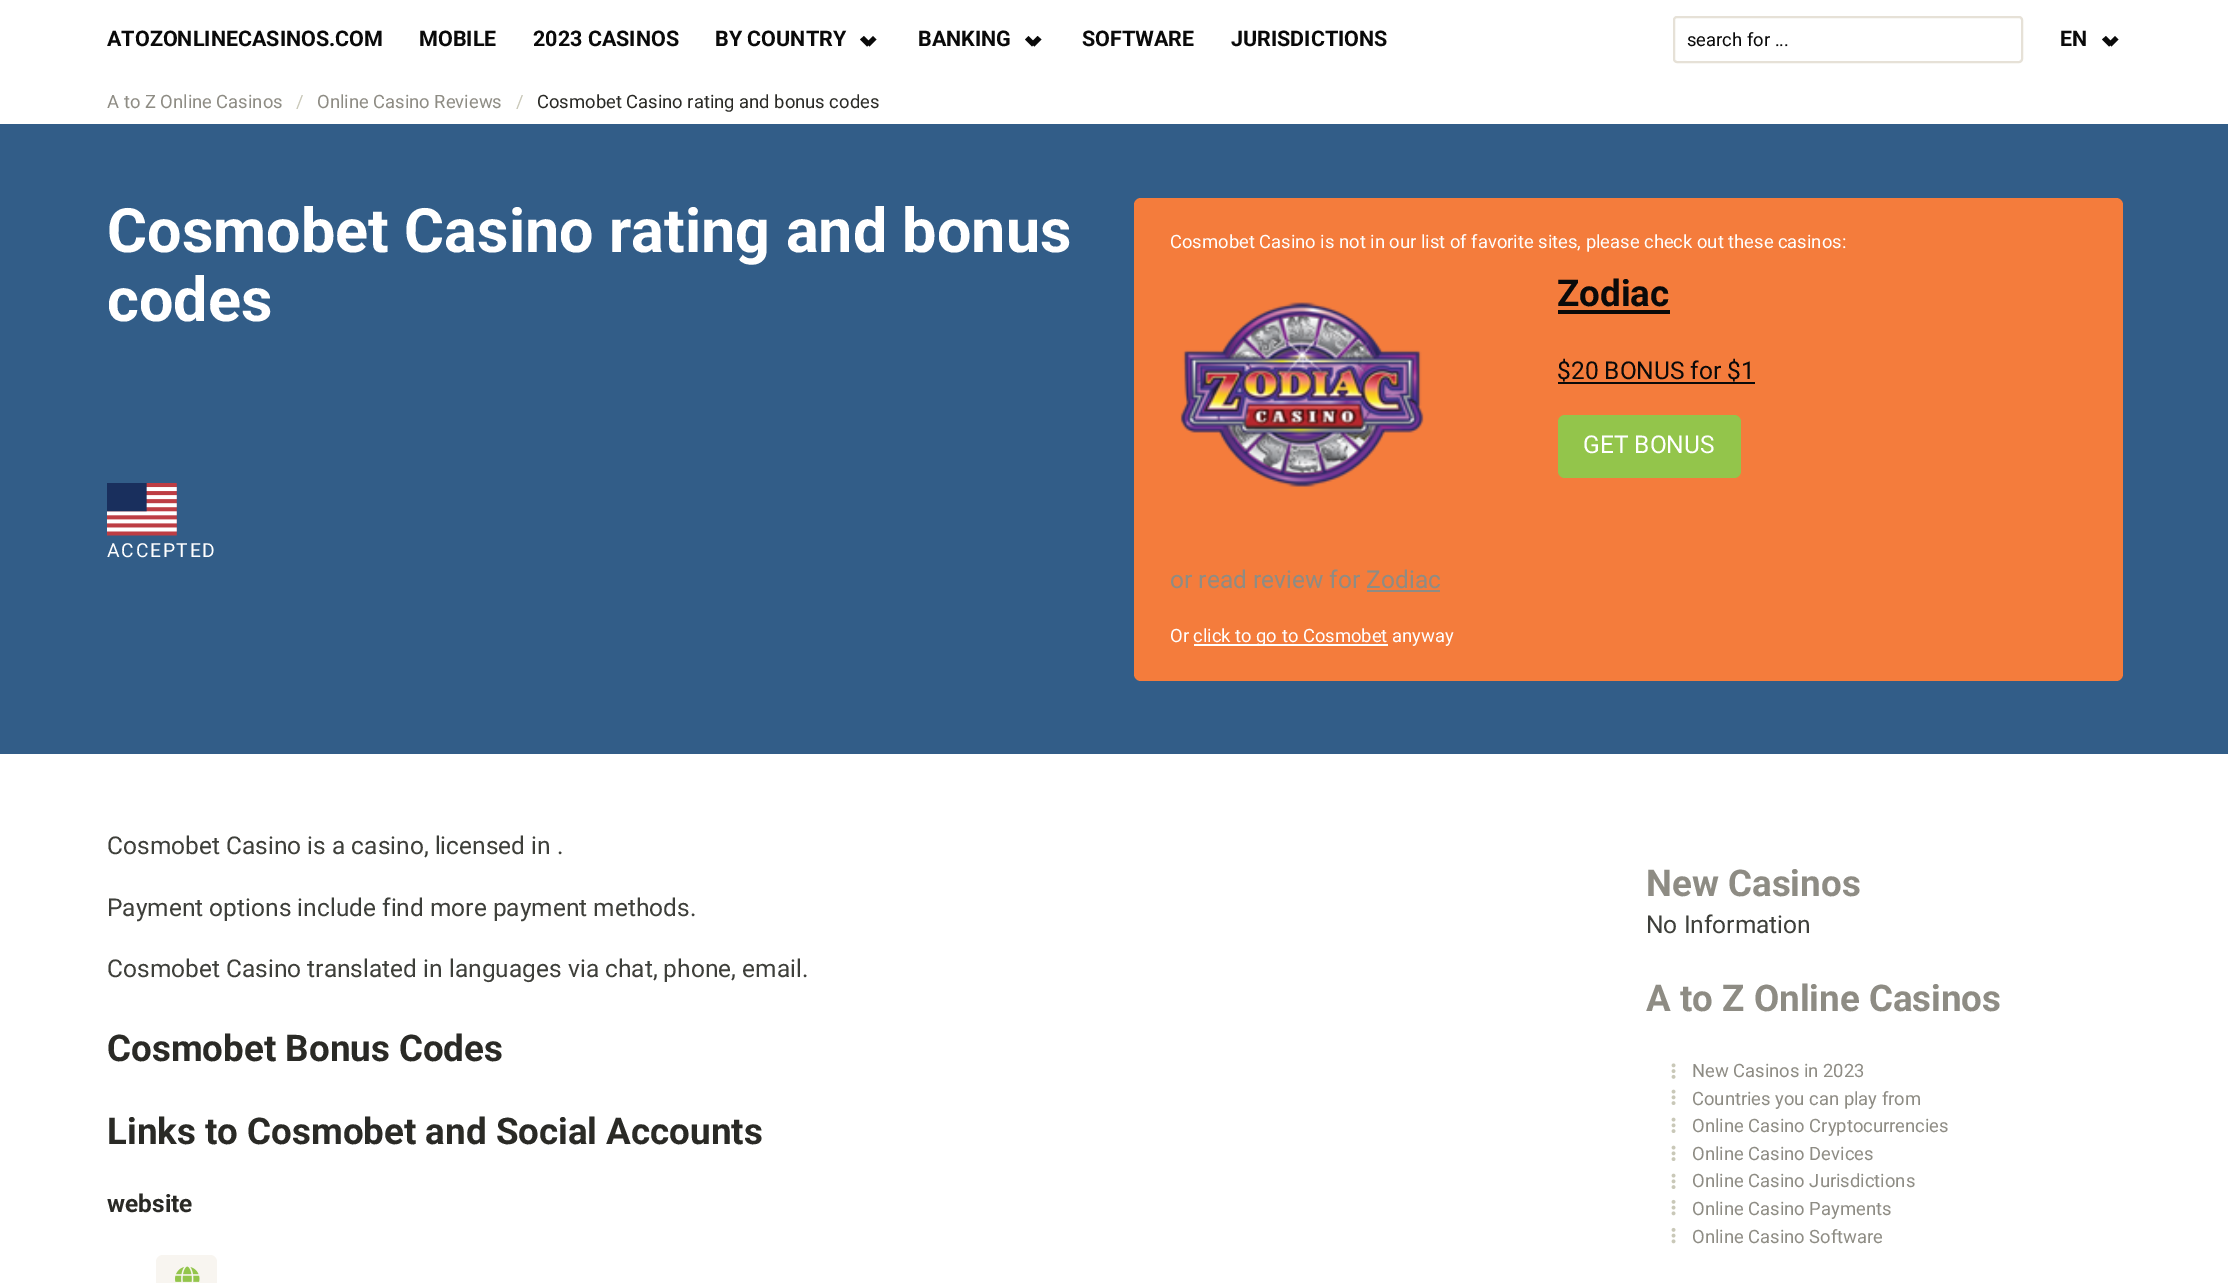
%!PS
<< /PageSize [2228 1283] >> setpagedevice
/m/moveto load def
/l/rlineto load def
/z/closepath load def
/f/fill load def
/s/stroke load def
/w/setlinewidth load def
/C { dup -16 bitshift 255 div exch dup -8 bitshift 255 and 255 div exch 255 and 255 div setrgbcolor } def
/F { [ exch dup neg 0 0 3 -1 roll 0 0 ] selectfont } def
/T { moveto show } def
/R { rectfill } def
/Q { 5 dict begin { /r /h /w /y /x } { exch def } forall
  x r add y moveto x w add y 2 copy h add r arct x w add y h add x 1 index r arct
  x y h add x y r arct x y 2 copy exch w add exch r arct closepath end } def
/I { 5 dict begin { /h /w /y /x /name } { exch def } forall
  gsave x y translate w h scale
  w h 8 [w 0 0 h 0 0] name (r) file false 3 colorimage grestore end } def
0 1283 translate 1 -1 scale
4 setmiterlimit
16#FFFFFF C
0 0 2228 1283 R
/Roboto-Bold 21.5 F
16#0A0A0A C
(ATOZONLINECASINOS.COM) 107 46 T
(MOBILE) 419 46 T
(2023 CASINOS) 533 46 T
(BY COUNTRY) 715 46 T
866 43 m 7 -7 l 3.5 3.5 l -7 7 l z f
860 39.5 m 4 -3.5 l 7 7 l -4 3.5 l z f
(BANKING) 918 46 T
1030.5 43 m 7 -7 l 4 3.5 l -7 7 l z f
1025 39.5 m 3.5 -3.5 l 7 7 l -3.5 3.5 l z f
(SOFTWARE) 1082 46 T
(JURISDICTIONS) 1231 46 T
16#E6E1D7 C
2 w
1674 17 348 45 3 Q s
/Roboto-Regular 18.4 F
16#0A0A0A C
(search for ...) 1687 46 T
/Roboto-Bold 21.5 F
(EN) 2060 46 T
2108 43 m 7 -7 l 3.5 3.5 l -7 7 l z f
2102 39.5 m 4 -3.5 l 7 7 l -4 3.5 l z f
/Roboto-Regular 18.4 F
16#8E8C84 C
(A to Z Online Casinos) 107 108 T
16#C9C8B8 C
(/) 296 108 T
16#8E8C84 C
(Online Casino Reviews) 317 108 T
16#C9C8B8 C
(/) 516 108 T
16#2A2A26 C
(Cosmobet Casino rating and bonus codes) 537 108 T
16#325D88 C
0 124 2228 630 R
/Roboto-Bold 61.25 F
16#FFFFFF C
(Cosmobet Casino rating and bonus) 107 252 T
(codes) 107 321 T
(1.rgb) 107 483 70 53 I
/Roboto-Regular 19.25 F
107 557 m 1.75 0 (ACCEPTED) ashow
16#F47C3C C
1134 198 989 483 7 Q f
/Roboto-Regular 18.4 F
16#FFFFFF C
(Cosmobet Casino is not in our list of favorite sites, please check out these casinos:) 1170 248 T
(2.rgb) 1180 302 244 185 I
/Roboto-Bold 36.75 F
16#0A0A0A C
(Zodiac) 1557 306 T
1558 310 112 4 R
/Roboto-Regular 24.5 F
($20 BONUS for $1) 1557 379 T
1558 382 197 2 R
16#93C54B C
1558 415 183 63 7 Q f
16#FFFFFF C
(GET BONUS) 1583 453 T
16#8E8C84 C
(or read review for Zodiac) 1170 588 T
1367 590 73 2 R
/Roboto-Regular 18.4 F
16#FFFFFF C
(Or) 1170 642 T
1194 644 194 2 R
(click to go to Cosmobet anyway) 1193 642 T
/Roboto-Regular 24.5 F
16#3E3F3A C
(Cosmobet Casino is a casino, licensed in .) 107 854 T
(Payment options include find more payment methods.) 107 916 T
(Cosmobet Casino translated in languages via chat, phone, email.) 107 977 T
/Roboto-Bold 36.75 F
16#2A2A26 C
(Cosmobet Bonus Codes) 107 1061 T
(Links to Cosmobet and Social Accounts) 107 1144 T
/Roboto-Bold 24.5 F
(website) 107 1212 T
16#F8F5F0 C
156 1255 61 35 7 Q f
(3.rgb) 175 1266 25 16 I
/Roboto-Bold 36.75 F
16#8E8C84 C
(New Casinos) 1646 896 T
/Roboto-Regular 24.5 F
16#3E3F3A C
(No Information) 1646 933 T
/Roboto-Bold 36.75 F
16#8E8C84 C
(A to Z Online Casinos) 1646 1011 T
(4.rgb) 1671 1063 5 16 I
/Roboto-Regular 18.4 F
(New Casinos in 2023) 1692 1077 T
(5.rgb) 1671 1089 5 16 I
(Countries you can play from) 1692 1105 T
(5.rgb) 1671 1117 5 16 I
(Online Casino Cryptocurrencies) 1692 1132 T
(5.rgb) 1671 1145 5 16 I
(Online Casino Devices) 1692 1160 T
(5.rgb) 1671 1173 5 16 I
(Online Casino Jurisdictions) 1692 1187 T
(6.rgb) 1671 1199 5 17 I
(Online Casino Payments) 1692 1215 T
(6.rgb) 1671 1227 5 17 I
(Online Casino Software) 1692 1243 T
showpage
